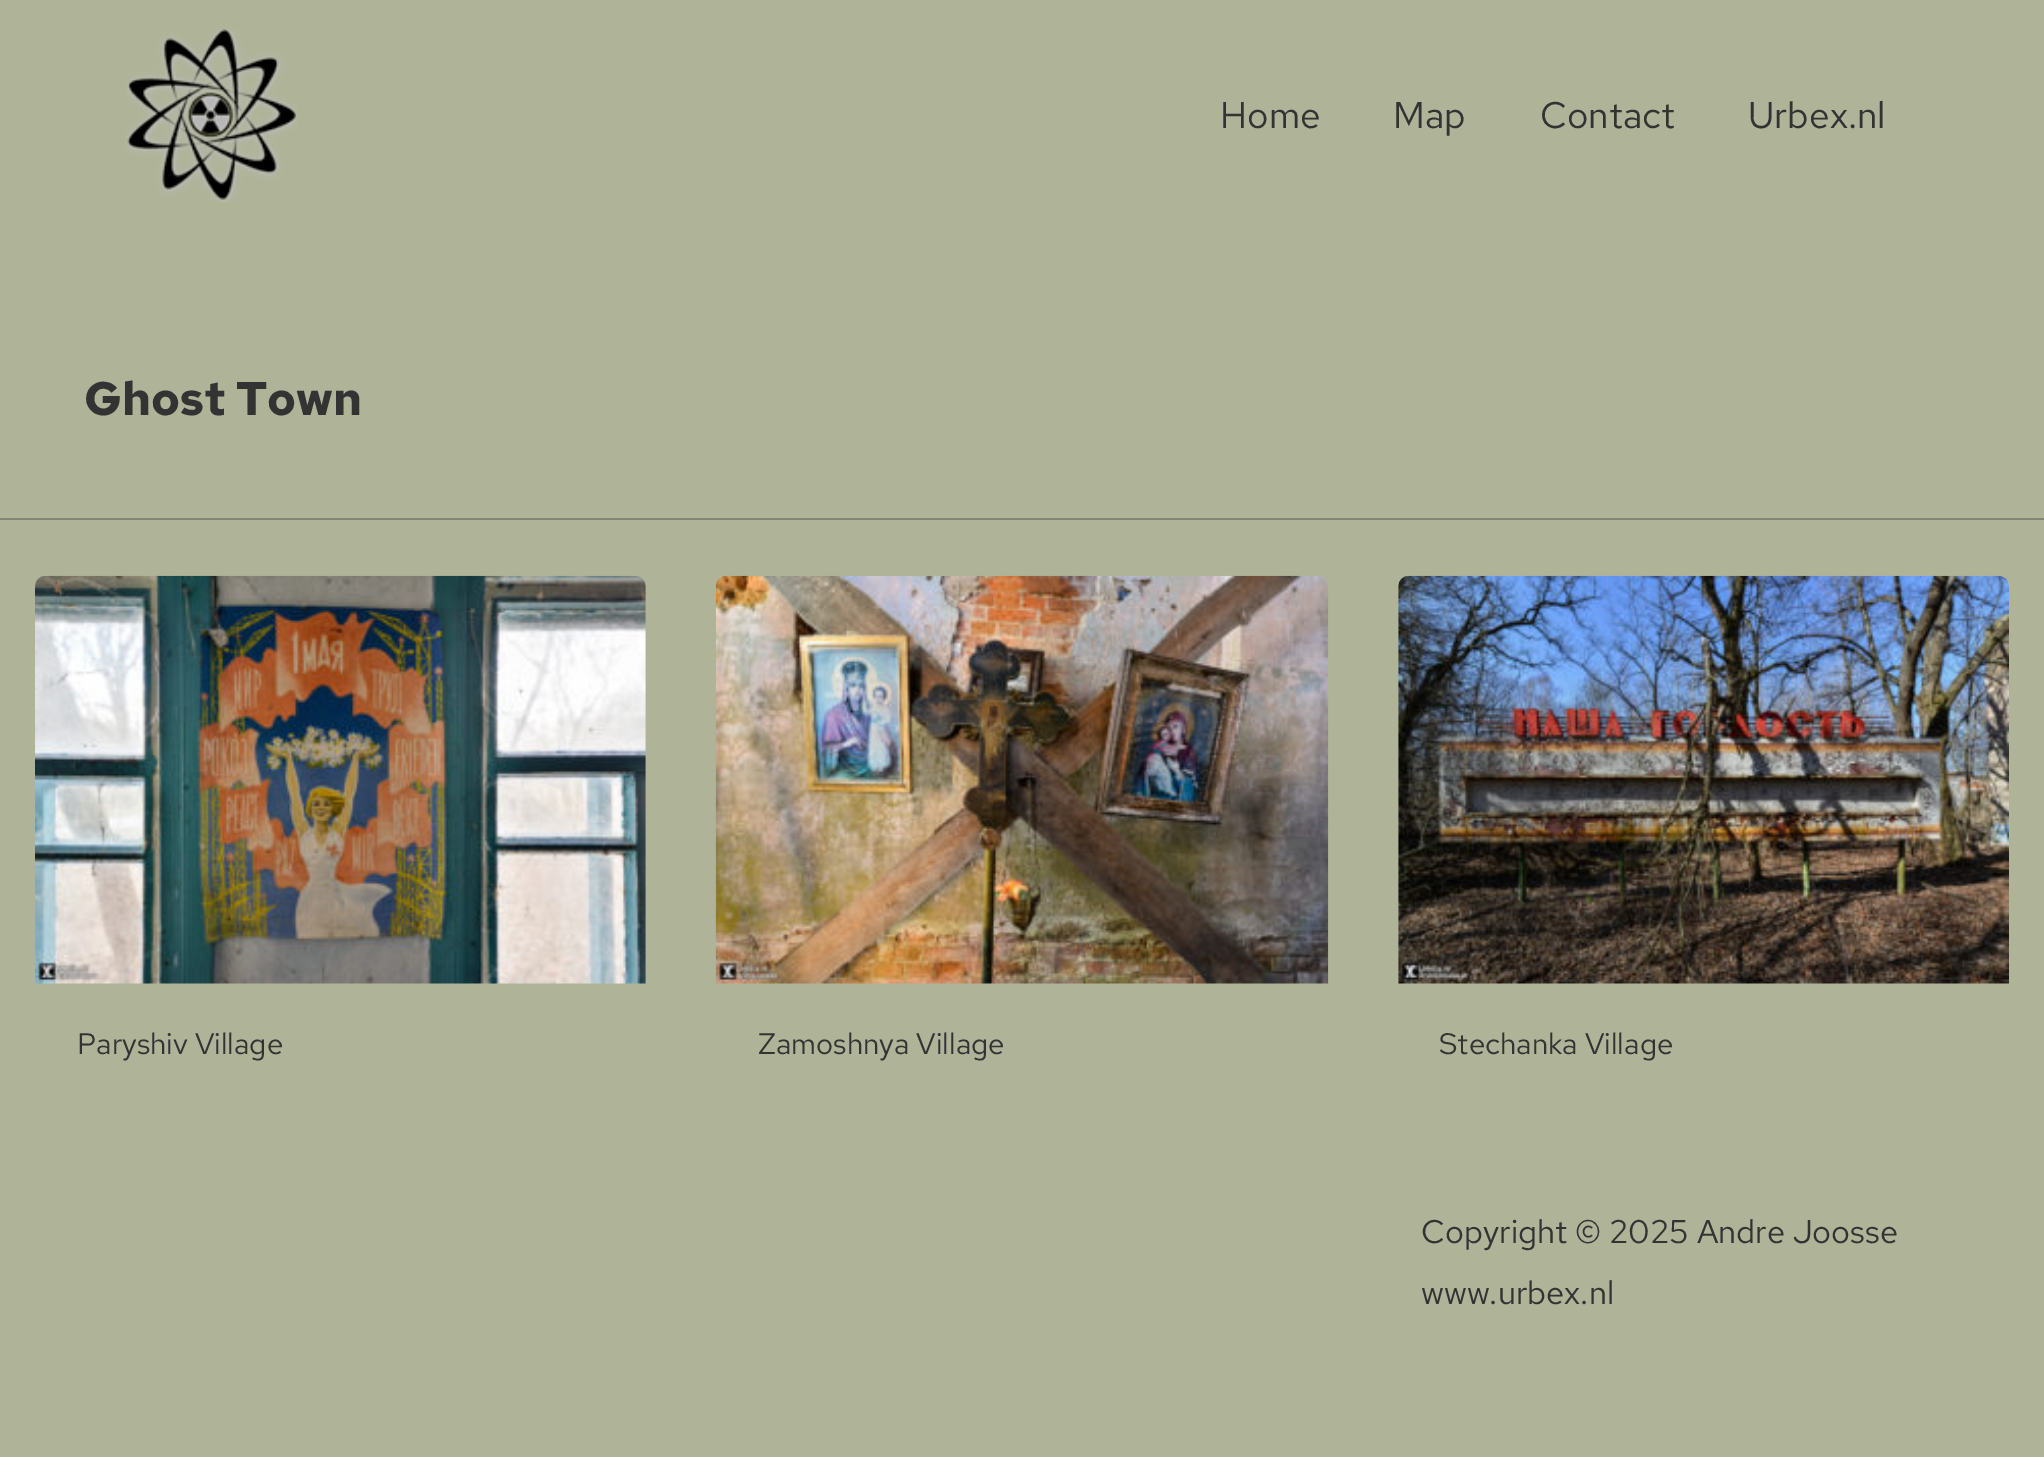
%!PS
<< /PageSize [2044 1457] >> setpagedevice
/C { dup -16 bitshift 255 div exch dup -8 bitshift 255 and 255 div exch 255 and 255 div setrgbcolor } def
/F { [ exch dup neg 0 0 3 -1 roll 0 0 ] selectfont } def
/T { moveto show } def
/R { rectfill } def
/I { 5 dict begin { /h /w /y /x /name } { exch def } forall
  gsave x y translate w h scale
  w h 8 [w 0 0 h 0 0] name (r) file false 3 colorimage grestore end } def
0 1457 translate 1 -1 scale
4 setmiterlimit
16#AFB499 C
0 0 2044 1457 R
(1.rgb) 125 28 173 175 I
/RedHatText-Regular 37 F
16#333333 C
(Home) 1220 128 T
(Map) 1393 128 T
(Contact) 1540 128 T
(Urbex.nl) 1748 128 T
16#828672 C
0 518 2044 2 R
/RedHatText-Bold 47 F
16#333333 C
(Ghost Town) 84 415 T
(2.rgb) 35 575 611 409 I
/RedHatText-Regular 29.5 F
(Paryshiv Village) 77 1054 T
(3.rgb) 715 575 614 409 I
(Zamoshnya Village) 758 1054 T
(4.rgb) 1398 575 611 409 I
(Stechanka Village) 1439 1054 T
/RedHatText-Regular 32.7 F
(Copyright © 2025 Andre Joosse) 1421 1243 T
(www.urbex.nl) 1421 1304 T
showpage
